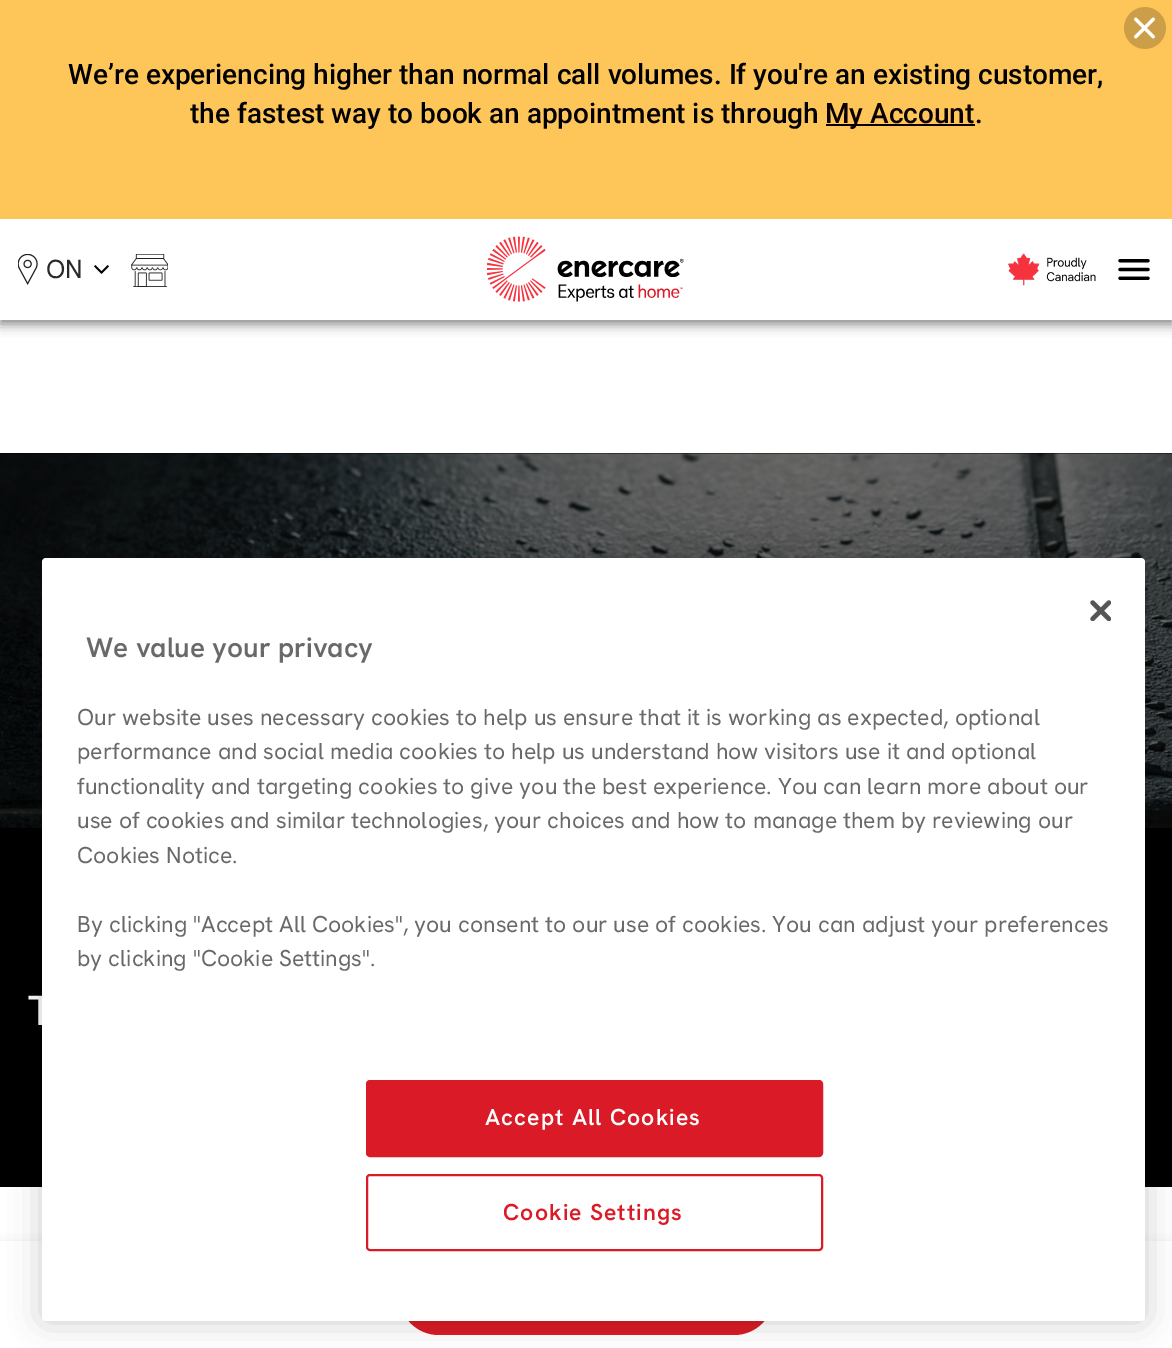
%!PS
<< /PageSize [1172 1348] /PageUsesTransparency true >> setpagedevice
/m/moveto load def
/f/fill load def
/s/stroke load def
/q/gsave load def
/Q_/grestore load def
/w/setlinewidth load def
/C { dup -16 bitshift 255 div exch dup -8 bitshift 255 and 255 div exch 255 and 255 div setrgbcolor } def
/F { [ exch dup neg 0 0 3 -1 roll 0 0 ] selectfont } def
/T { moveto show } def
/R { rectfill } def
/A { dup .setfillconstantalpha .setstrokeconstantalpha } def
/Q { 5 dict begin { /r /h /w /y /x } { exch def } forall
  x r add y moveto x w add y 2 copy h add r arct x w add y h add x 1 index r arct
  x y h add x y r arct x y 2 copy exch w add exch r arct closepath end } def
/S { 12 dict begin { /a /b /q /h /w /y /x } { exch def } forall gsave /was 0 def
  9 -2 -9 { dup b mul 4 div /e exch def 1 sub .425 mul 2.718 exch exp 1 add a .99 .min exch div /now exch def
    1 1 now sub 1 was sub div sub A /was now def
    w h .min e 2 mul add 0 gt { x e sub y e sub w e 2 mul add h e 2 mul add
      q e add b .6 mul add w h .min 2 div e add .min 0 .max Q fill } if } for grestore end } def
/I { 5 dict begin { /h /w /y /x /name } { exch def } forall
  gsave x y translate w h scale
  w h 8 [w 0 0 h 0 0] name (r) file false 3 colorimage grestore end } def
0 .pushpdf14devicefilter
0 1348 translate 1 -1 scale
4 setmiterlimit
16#FFFFFF C
0 0 1172 1348 R
16#000000 C
0 222 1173 102 0 6 .5 S
16#FEC559 C
0 0 1172 219 R
(1.rgb) 1124 7 42 42 I
/Roboto-Medium 28 F
16#000000 C
(We’re experiencing higher than normal call volumes. If you're an existing customer,) 68 84 T
(the fastest way to book an appointment is through) 190 123 T
16#0A0000 C
826 124 149 2 R
(My Account) 825 123 T
16#000000 C
(.) 975 123 T
16#FFFFFF C
0 219 1172 101 R
(2.rgb) 18 254 20 31 I
/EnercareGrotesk-Regular 26 F
16#29292C C
(ON) 46 278 T
(3.rgb) 94 265 15 9 I
(4.rgb) 131 254 37 33 I
(5.rgb) 487 236 197 66 I
(6.rgb) 1008 253 88 33 I
(7.rgb) 1118 259 32 21 I
16#000000 C
0 453 1172 734 R
(8.rgb) 0 453 1172 375 I
/EnercareGrotesk-Medium 42 F
16#FFFFFF C
(T) 28 1025 T
16#383D43 C
0 1248 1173 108 0 7 .3 S
16#FFFFFF C
0 1241 1172 107 R
16#DA1B27 C
399 1255 375 80 40 Q f
16#000000 C
42 558 1103 763 4 16 .2 S
16#FFFFFF C
42 558 1103 763 4 Q f
(9.rgb) 1090 600 21 21 I
/EnercareGrotesk-SemiBold 28 F
16#696969 C
(We value your privacy) 86 657 T
/EnercareGrotesk-Regular 22.95 F
(Our website uses necessary cookies to help us ensure that it is working as expected, optional) 77 725 T
(performance and social media cookies to help us understand how visitors use it and optional) 77 759 T
(functionality and targeting cookies to give you the best experience. You can learn more about our) 77 794 T
(use of cookies and similar technologies, your choices and how to manage them by reviewing our) 77 828 T
(Cookies Notice.) 77 863 T
(By clicking "Accept All Cookies", you consent to our use of cookies. You can adjust your preferences) 77 932 T
(by clicking "Cookie Settings".) 77 966 T
16#DA1B27 C
367 1081 455 75 3 Q q f Q_
2 w
s
/EnercareGrotesk-SemiBold 22.95 F
16#FFFFFF C
485 1125 m 1.1 0 (Accept All Cookies) ashow
16#DA1B27 C
367 1175 455 75 3 Q s
503 1220 m 1.1 0 (Cookie Settings) ashow
.poppdf14devicefilter showpage
